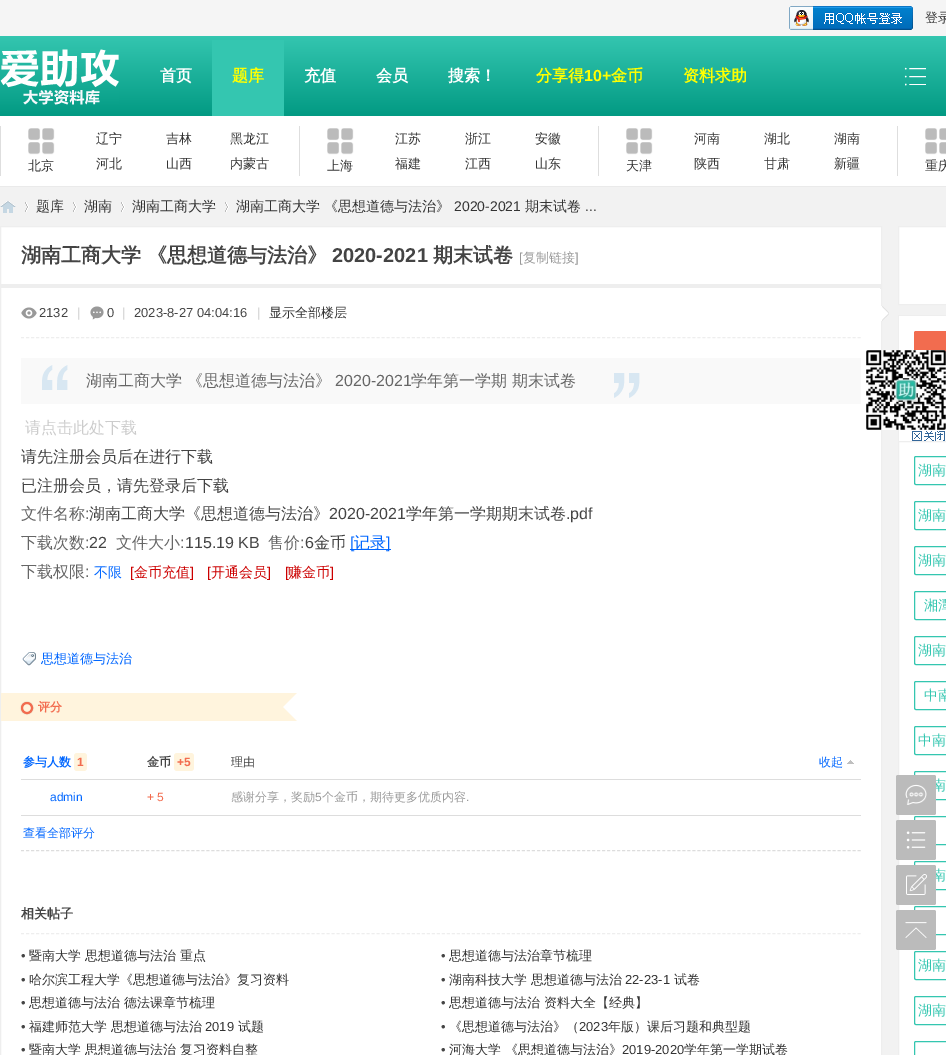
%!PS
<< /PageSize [946 1055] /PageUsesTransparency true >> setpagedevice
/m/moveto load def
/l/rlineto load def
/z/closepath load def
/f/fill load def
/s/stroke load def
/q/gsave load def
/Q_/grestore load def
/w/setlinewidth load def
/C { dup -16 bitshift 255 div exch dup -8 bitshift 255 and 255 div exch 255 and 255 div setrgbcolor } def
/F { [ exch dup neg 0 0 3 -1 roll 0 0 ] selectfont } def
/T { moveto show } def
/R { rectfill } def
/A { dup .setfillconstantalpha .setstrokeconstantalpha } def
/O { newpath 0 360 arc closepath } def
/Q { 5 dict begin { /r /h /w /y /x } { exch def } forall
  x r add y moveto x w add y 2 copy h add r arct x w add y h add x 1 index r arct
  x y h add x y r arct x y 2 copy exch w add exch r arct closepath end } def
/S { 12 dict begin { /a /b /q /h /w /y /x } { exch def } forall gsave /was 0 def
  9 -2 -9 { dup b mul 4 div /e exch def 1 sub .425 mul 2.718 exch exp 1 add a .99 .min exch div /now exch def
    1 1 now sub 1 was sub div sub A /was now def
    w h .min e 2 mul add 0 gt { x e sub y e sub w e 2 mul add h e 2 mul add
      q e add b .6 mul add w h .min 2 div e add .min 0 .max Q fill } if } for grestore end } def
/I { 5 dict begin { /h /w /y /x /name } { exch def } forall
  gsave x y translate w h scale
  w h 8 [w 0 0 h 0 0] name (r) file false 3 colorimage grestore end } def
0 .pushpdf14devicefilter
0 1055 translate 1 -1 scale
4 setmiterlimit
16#F2F2F2 C
0 0 946 1055 R
16#F5F5F5 C
0 0 946 36 R
(1.rgb) 789 6 124 24 I
/WenQuanYiZenHei-Medium 13 F
16#333333 C
(登录) 925 22 T
q 140 36 m 806 0 l 0 80 l -806 0 l z clip newpath
<< /ShadingType 2 /ColorSpace /DeviceRGB /Coords [600 116 600 36] /Extend [true true] /Function << /FunctionType 2 /Domain [0 1] /C0 [.008 .604 .514] /C1 [.204 .776 .69] /N 1 >> >> shfill Q_
q 0 36 m 140 0 l 0 80 l -140 0 l z clip newpath
<< /ShadingType 2 /ColorSpace /DeviceRGB /Coords [70 116 70 36] /Extend [true true] /Function << /FunctionType 2 /Domain [0 1] /C0 [.008 .604 .514] /C1 [.204 .776 .69] /N 1 >> >> shfill Q_
(2.rgb) 0 49 119 56 I
/WenQuanYiZenHei-Bold 16 F
16#FFFFFF C
(首页) 160 81 T
16#34C6B0 C
212 40 72 76 R
16#FFFF00 C
(题库) 232 81 T
16#FFFFFF C
(充值) 304 81 T
(会员) 376 81 T
(搜索！) 448 81 T
16#FFFF00 C
(分享得) 536 81 T
/LiberationSans-Bold 16 F
(10+) 584 81 T
/WenQuanYiZenHei-Bold 16 F
(金币) 611 81 T
(资料求助) 683 81 T
(3.rgb) 904 67 22 19 I
16#FFFFFF C
0 116 946 70 R
16#EAEAEA C
0 186 946 1 R
16#DEDEDE C
0 126 1 50 R
(4.rgb) 28 128 27 27 I
/WenQuanYiZenHei-Medium 13 F
16#333333 C
(北京) 28 170 T
(辽宁) 96 143 T
(吉林) 166 143 T
(黑龙江) 230 143 T
(河北) 96 168 T
(山西) 166 168 T
(内蒙古) 230 168 T
16#DEDEDE C
299 126 1 50 R
(4.rgb) 327 128 27 27 I
16#333333 C
(上海) 327 170 T
(江苏) 395 143 T
(浙江) 465 143 T
(安徽) 535 143 T
(福建) 395 168 T
(江西) 465 168 T
(山东) 535 168 T
16#DEDEDE C
598 126 1 50 R
(4.rgb) 626 128 27 27 I
16#333333 C
(天津) 626 170 T
(河南) 694 143 T
(湖北) 764 143 T
(湖南) 834 143 T
(陕西) 694 168 T
(甘肃) 764 168 T
(新疆) 834 168 T
16#DEDEDE C
897 126 1 50 R
(5.rgb) 925 128 21 27 I
16#333333 C
(重庆) 925 170 T
(6.rgb) 0 201 16 12 I
(7.rgb) 25 202 4 10 I
/WenQuanYiZenHei-Medium 14 F
(题库) 36 211 T
(7.rgb) 73 202 4 10 I
(湖南) 84 211 T
(7.rgb) 121 202 4 10 I
(湖南工商大学) 132 211 T
(7.rgb) 225 202 4 10 I
(湖南工商大学 《思想道德与法治》) 236 211 T
/LiberationSans-Regular 14 F
(2020-2021) 454 211 T
/WenQuanYiZenHei-Medium 14 F
(期末试卷) 525 211 T
/LiberationSans-Regular 14 F
(...) 585 211 T
16#FFFFFF C
.5 226.5 m 881 0 l 0 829 l -881 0 l z q f Q_
16#EEEEEE C
s
/WenQuanYiZenHei-Bold 20 F
16#444444 C
(湖南工商大学 《思想道德与法治》) 21 262 T
/LiberationSans-Bold 20 F
(2020-2021) 332 262 T
/WenQuanYiZenHei-Bold 20 F
(期末试卷) 433 262 T
/LiberationSans-Regular 13 F
16#999999 C
([) 519 262 T
/WenQuanYiZenHei-Medium 13 F
(复制链接) 523 262 T
/LiberationSans-Regular 13 F
(]) 575 262 T
16#EEEEEE C
880 284 1 5 R
1 284 880 4 R
[3 2.01] 0 setdash
21 337.5 m 840 0 l s
(8.rgb) 21 307 16 12 I
16#444444 C
(2132) 39 317 T
(9.rgb) 881 306 8 15 I
16#CCCCCC C
(|) 77 317 T
(10.rgb) 90 306 14 14 I
16#444444 C
(0) 107 317 T
16#CCCCCC C
(|) 122 317 T
16#444444 C
(2023-8-27 04:04:16) 134 317 T
16#CCCCCC C
(|) 257 317 T
/WenQuanYiZenHei-Medium 13 F
16#333333 C
(显示全部楼层) 269 317 T
16#F9F9F9 C
21 358 840 46 R
(11.rgb) 42 365 26 25 I
(12.rgb) 614 373 26 25 I
/WenQuanYiZenHei-Medium 16 F
16#666666 C
(湖南工商大学 《思想道德与法治》) 86 386 T
/LiberationSans-Regular 16 F
(2020-2021) 335 386 T
/WenQuanYiZenHei-Medium 16 F
(学年第一学期 期末试卷) 411 386 T
16#CCCCCC C
(请点击此处下载) 25 433 T
16#444444 C
(请先注册会员后在进行下载) 21 462 T
(已注册会员，请先登录后下载) 21 491 T
16#666666 C
(文件名称) 21 519 T
/LiberationSans-Regular 16 F
(:) 85 519 T
/WenQuanYiZenHei-Medium 16 F
16#444444 C
(湖南工商大学《思想道德与法治》) 89 519 T
/LiberationSans-Regular 16 F
(2020-2021) 329 519 T
/WenQuanYiZenHei-Medium 16 F
(学年第一学期期末试卷) 406 519 T
/LiberationSans-Regular 16 F
(.pdf) 566 519 T
/WenQuanYiZenHei-Medium 16 F
16#666666 C
(下载次数) 21 548 T
/LiberationSans-Regular 16 F
(:) 85 548 T
16#444444 C
(22) 89 548 T
/WenQuanYiZenHei-Medium 16 F
16#666666 C
(文件大小) 116 548 T
/LiberationSans-Regular 16 F
(:) 180 548 T
16#444444 C
(115.19 KB) 185 548 T
/WenQuanYiZenHei-Medium 16 F
16#666666 C
(售价) 268 548 T
/LiberationSans-Regular 16 F
(:) 300 548 T
16#444444 C
(6) 305 548 T
/WenQuanYiZenHei-Medium 16 F
(金币) 314 548 T
16#0066FF C
350 549 41 1 R
/LiberationSans-Regular 16 F
([) 350 548 T
/WenQuanYiZenHei-Medium 16 F
(记录) 354 548 T
/LiberationSans-Regular 16 F
(]) 386 548 T
/WenQuanYiZenHei-Medium 16 F
16#666666 C
(下载权限) 21 577 T
/LiberationSans-Regular 16 F
(:) 85 577 T
/WenQuanYiZenHei-Medium 14 F
16#0066FF C
(不限) 94 577 T
/LiberationSans-Regular 14 F
16#CC0000 C
([) 130 577 T
/WenQuanYiZenHei-Medium 14 F
(金币充值) 134 577 T
/LiberationSans-Regular 14 F
(]) 190 577 T
([) 207 577 T
/WenQuanYiZenHei-Medium 14 F
(开通会员) 211 577 T
/LiberationSans-Regular 14 F
(]) 267 577 T
([) 285 577 T
/WenQuanYiZenHei-Medium 14 F
(赚金币) 288 577 T
/LiberationSans-Regular 14 F
(]) 330 577 T
(13.rgb) 22 652 14 14 I
/WenQuanYiZenHei-Medium 13 F
16#0066FF C
(思想道德与法治) 41 663 T
16#FFF4DD C
1 693 296 28 R
(14.rgb) 283 693 23 28 I
16#000000 C
21 702 12 12 6 .5 .2 S
16#FFF4DD C
27 708 5 O q f Q_
16#F26C4F C
2 w
[] 0 setdash
s
/WenQuanYiZenHei-Bold 12 F
(评分) 38 711 T
16#0066FF C
(参与人数) 23 766 T
16#FFF4DD C
74 753 13 18 3 Q f
/LiberationSans-Bold 12 F
16#F26C4F C
(1) 77 766 T
/WenQuanYiZenHei-Bold 12 F
16#444444 C
(金币) 147 766 T
16#FFF4DD C
174 753 20 18 3 Q f
/LiberationSans-Bold 12 F
16#F26C4F C
(+5) 177 766 T
16#DDDDDD C
21 779 840 1 R
/WenQuanYiZenHei-Medium 12 F
16#444444 C
(理由) 231 766 T
(15.rgb) 847 760 7 4 I
16#0066FF C
(收起) 819 766 T
/LiberationSans-Regular 12 F
(admin) 50 801 T
16#F26C4F C
(+ 5) 147 801 T
16#DDDDDD C
21 815 840 1 R
/WenQuanYiZenHei-Medium 12 F
16#999999 C
(感谢分享，奖励) 231 801 T
/LiberationSans-Regular 12 F
(5) 315 801 T
/WenQuanYiZenHei-Medium 12 F
(个金币，期待更多优质内容) 322 801 T
/LiberationSans-Regular 12 F
(.) 466 801 T
16#DDDDDD C
1 w
[3 2.01] 0 setdash
21 850.5 m 840 0 l s
/WenQuanYiZenHei-Medium 12 F
16#0066FF C
(查看全部评分) 23 837 T
16#EEEEEE C
21 933.5 m 840 0 l s
/WenQuanYiZenHei-Bold 13 F
16#444444 C
(相关帖子) 21 918 T
/LiberationSans-Regular 13 F
(•) 21 960 T
/WenQuanYiZenHei-Medium 13 F
16#333333 C
(暨南大学 思想道德与法治 重点) 29 960 T
/LiberationSans-Regular 13 F
16#444444 C
(•) 441 960 T
/WenQuanYiZenHei-Medium 13 F
16#333333 C
(思想道德与法治章节梳理) 449 960 T
/LiberationSans-Regular 13 F
16#444444 C
(•) 21 984 T
/WenQuanYiZenHei-Medium 13 F
16#333333 C
(哈尔滨工程大学《思想道德与法治》复习资料) 29 984 T
/LiberationSans-Regular 13 F
16#444444 C
(•) 441 984 T
/WenQuanYiZenHei-Medium 13 F
16#333333 C
(湖南科技大学 思想道德与法治) 449 984 T
/LiberationSans-Regular 13 F
(22-23-1) 625 984 T
/WenQuanYiZenHei-Medium 13 F
(试卷) 674 984 T
/LiberationSans-Regular 13 F
16#444444 C
(•) 21 1007 T
/WenQuanYiZenHei-Medium 13 F
16#333333 C
(思想道德与法治 德法课章节梳理) 29 1007 T
/LiberationSans-Regular 13 F
16#444444 C
(•) 441 1007 T
/WenQuanYiZenHei-Medium 13 F
16#333333 C
(思想道德与法治 资料大全【经典】) 449 1007 T
/LiberationSans-Regular 13 F
16#444444 C
(•) 21 1031 T
/WenQuanYiZenHei-Medium 13 F
16#333333 C
(福建师范大学 思想道德与法治) 29 1031 T
/LiberationSans-Regular 13 F
(2019) 205 1031 T
/WenQuanYiZenHei-Medium 13 F
(试题) 238 1031 T
/LiberationSans-Regular 13 F
16#444444 C
(•) 441 1031 T
/WenQuanYiZenHei-Medium 13 F
16#333333 C
(《思想道德与法治》（) 449 1031 T
/LiberationSans-Regular 13 F
(2023) 579 1031 T
/WenQuanYiZenHei-Medium 13 F
(年版）课后习题和典型题) 608 1031 T
/LiberationSans-Regular 13 F
16#444444 C
(•) 21 1054 T
/WenQuanYiZenHei-Medium 13 F
16#333333 C
(暨南大学 思想道德与法治 复习资料自整) 29 1054 T
/LiberationSans-Regular 13 F
16#444444 C
(•) 441 1054 T
/WenQuanYiZenHei-Medium 13 F
16#333333 C
(河海大学 《思想道德与法治》) 449 1054 T
/LiberationSans-Regular 13 F
(2019-2020) 622 1054 T
/WenQuanYiZenHei-Medium 13 F
(学年第一学期试卷) 684 1054 T
16#FFFFFF C
898.5 226.5 m 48 0 l 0 78 l -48 0 l z q f Q_
16#EEEEEE C
[] 0 setdash
s
16#FFFFFF C
899 316 47 125 R
16#EEEEEE C
898 315 48 1 R
898 315 1 126 R
16#F26C4F C
914 331 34 40 2 Q f
16#FFFFFF C
898.5 441.5 m 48 0 l 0 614 l -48 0 l z q f Q_
16#EEEEEE C
s
16#34C6B0 C
914.5 456.5 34 28 1.5 Q s
/WenQuanYiZenHei-Medium 14 F
(湖南) 918 475 T
914.5 501.5 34 28 1.5 Q s
(湖南) 918 520 T
914.5 546.5 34 28 1.5 Q s
(湖南) 918 565 T
914.5 591.5 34 28 1.5 Q s
(湘潭) 924 610 T
914.5 636.5 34 28 1.5 Q s
(湖南) 918 655 T
914.5 681.5 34 28 1.5 Q s
(中南) 924 700 T
914.5 726.5 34 28 1.5 Q s
(中南) 918 745 T
914.5 771.5 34 28 1.5 Q s
(南) 932 790 T
914.5 816.5 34 28 1.5 Q s
914.5 861.5 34 28 1.5 Q s
(南) 932 880 T
914.5 906.5 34 28 1.5 Q s
914.5 951.5 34 28 1.5 Q s
(湖南) 918 970 T
914.5 996.5 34 28 1.5 Q s
(湖南) 918 1015 T
914.5 1041.5 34 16 1.5 Q s
(16.rgb) 866 350 80 80 I
(17.rgb) 912 431 33 10 I
16#BBBBBB C
896 775 40 40 2 Q f
(18.rgb) 905 784 22 21 I
896 820 40 40 2 Q f
(19.rgb) 906 831 20 18 I
896 865 40 40 2 Q f
(20.rgb) 906 874 21 21 I
896 910 40 40 2 Q f
(21.rgb) 905 922 22 16 I
.poppdf14devicefilter showpage
